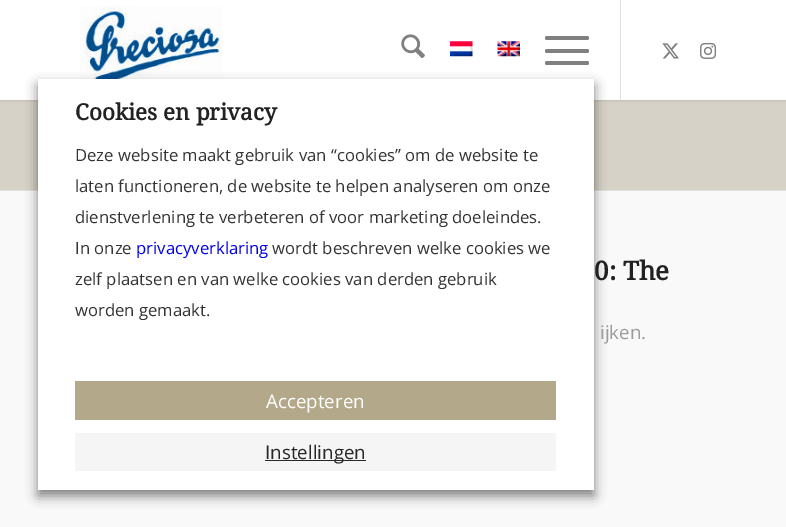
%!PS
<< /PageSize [786 527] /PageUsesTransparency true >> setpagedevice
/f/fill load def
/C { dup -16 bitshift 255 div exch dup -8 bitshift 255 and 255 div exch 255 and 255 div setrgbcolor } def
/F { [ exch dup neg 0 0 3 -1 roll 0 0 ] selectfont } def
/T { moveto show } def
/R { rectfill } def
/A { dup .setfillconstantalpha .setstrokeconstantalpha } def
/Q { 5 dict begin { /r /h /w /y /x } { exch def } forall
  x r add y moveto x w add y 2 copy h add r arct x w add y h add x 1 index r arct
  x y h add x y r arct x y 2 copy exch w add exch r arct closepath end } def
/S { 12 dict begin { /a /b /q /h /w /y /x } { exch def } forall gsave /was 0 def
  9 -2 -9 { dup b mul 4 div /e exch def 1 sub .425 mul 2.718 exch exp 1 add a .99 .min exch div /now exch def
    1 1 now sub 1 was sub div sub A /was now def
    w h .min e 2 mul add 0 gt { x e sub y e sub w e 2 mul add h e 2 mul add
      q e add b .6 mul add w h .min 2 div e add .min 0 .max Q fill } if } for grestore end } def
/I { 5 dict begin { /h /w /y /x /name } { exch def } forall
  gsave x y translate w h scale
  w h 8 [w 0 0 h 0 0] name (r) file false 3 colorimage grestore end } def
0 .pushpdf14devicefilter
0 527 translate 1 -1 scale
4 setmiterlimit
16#D7D2C7 C
0 0 786 527 R
16#000000 C
-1 -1 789 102 0 1 .1 S
16#FFFFFF C
0 0 786 100 R
(1.rgb) 80 6 143 73 I
16#F9F9F9 C
0 191 786 336 R
16#E1E1E1 C
0 190 786 1 R
16#000000 C
38 85 556 411 0 6 .5 S
16#FFFFFF C
38 79 556 411 R
/DroidSerif-Bold 22.5 F
16#222222 C
(Cookies en privacy) 75 120 T
/OpenSans-Regular 16.7 F
16#333333 C
(Deze website maakt gebruik van “cookies” om de website te) 75 161 T
(laten functioneren, de website te helpen analyseren om onze) 75 192 T
(dienstverlening te verbeteren of voor marketing doeleindes.) 75 223 T
(In onze) 75 254 T
16#0000EE C
(privacyverklaring) 136 254 T
16#333333 C
(wordt beschreven welke cookies we) 272 254 T
(zelf plaatsen en van welke cookies van derden gebruik) 75 285 T
(worden gemaakt.) 75 316 T
16#B4A88A C
75 381 481 39 R
/OpenSans-Regular 18.75 F
16#FFFFFF C
(Accepteren) 266 408 T
16#F5F5F5 C
75 433 481 38 R
16#282828 C
265 460 101 1 R
(Instellingen) 265 459 T
16#E1E1E1 C
620 0 1 100 R
(2.rgb) 401 34 24 25 I
(3.rgb) 450 41 23 16 I
(4.rgb) 497 41 23 16 I
16#808080 C
545 49 44 4 2 Q f
545 36 44 4 2 Q f
545 61 44 4 2 Q f
(5.rgb) 662 43 17 16 I
(6.rgb) 700 42 17 17 I
/DroidSerif-Bold 26 F
16#222222 C
(0: The) 594 280 T
/OpenSans-Regular 18.75 F
16#9C9C9C C
(ijken.) 600 339 T
.poppdf14devicefilter showpage
